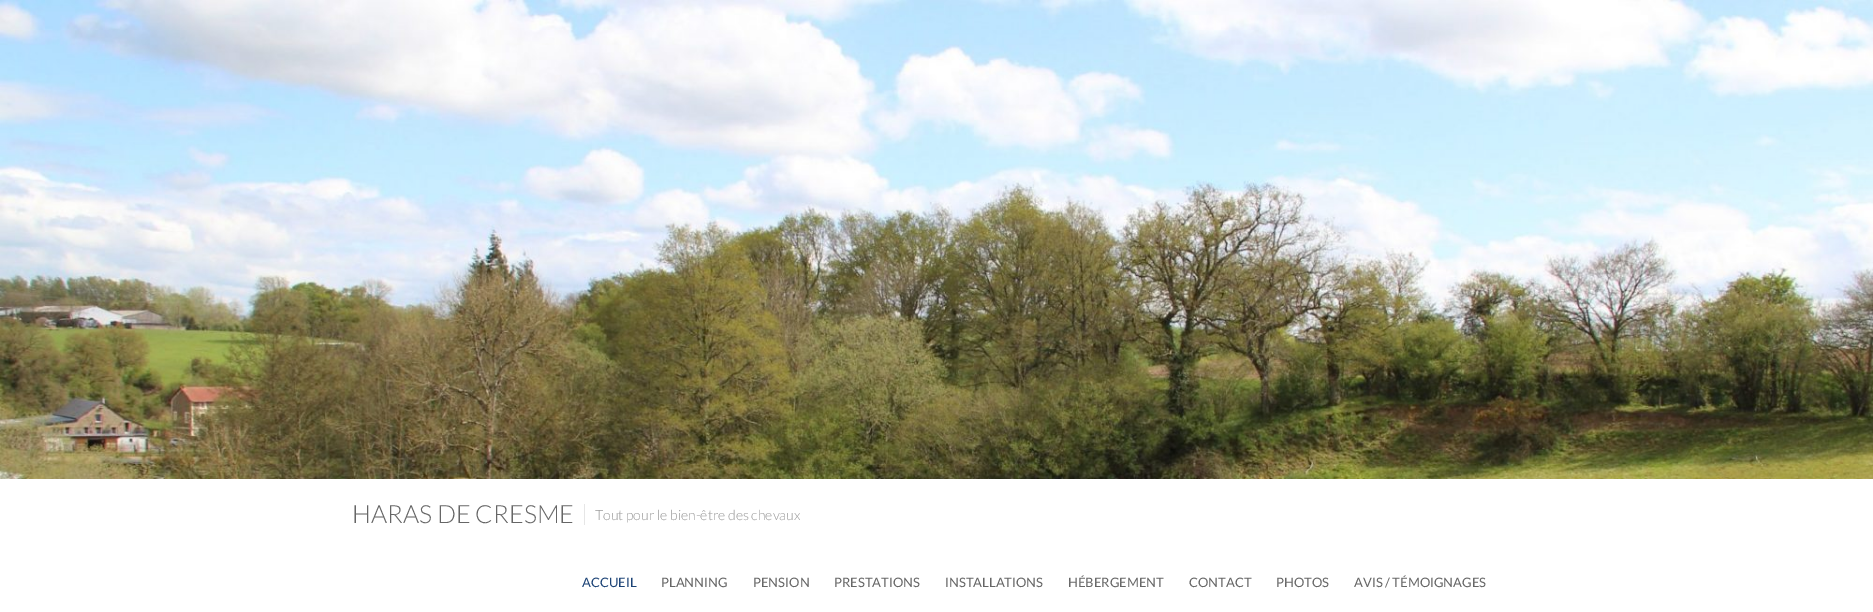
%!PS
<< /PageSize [1873 612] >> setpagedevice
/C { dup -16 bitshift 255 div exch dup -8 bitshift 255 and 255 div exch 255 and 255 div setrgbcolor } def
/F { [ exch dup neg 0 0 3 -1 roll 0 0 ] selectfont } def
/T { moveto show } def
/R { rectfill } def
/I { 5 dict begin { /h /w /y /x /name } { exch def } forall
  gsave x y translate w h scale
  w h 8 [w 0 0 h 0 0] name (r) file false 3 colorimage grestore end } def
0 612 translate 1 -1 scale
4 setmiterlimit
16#FFFFFF C
0 0 1873 612 R
(1.rgb) 0 0 1873 479 I
/Lato-Light 25 F
16#666666 C
(HARAS DE CRESME) 352 523 T
16#E6E6E6 C
584 504 1 21 R
/Lato-Light 14 F
16#999999 C
(Tout pour le bien-être des chevaux) 595 520 T
/Lato-Regular 13 F
16#1C4376 C
(ACCUEIL) 582 587 T
16#666666 C
(PLANNING) 661 587 T
(PENSION) 753 587 T
(PRESTATIONS) 834 587 T
(INSTALLATIONS) 945 587 T
(HÉBERGEMENT) 1068 587 T
(CONTACT) 1189 587 T
(PHOTOS) 1276 587 T
(AVIS / TÉMOIGNAGES) 1354 587 T
showpage
